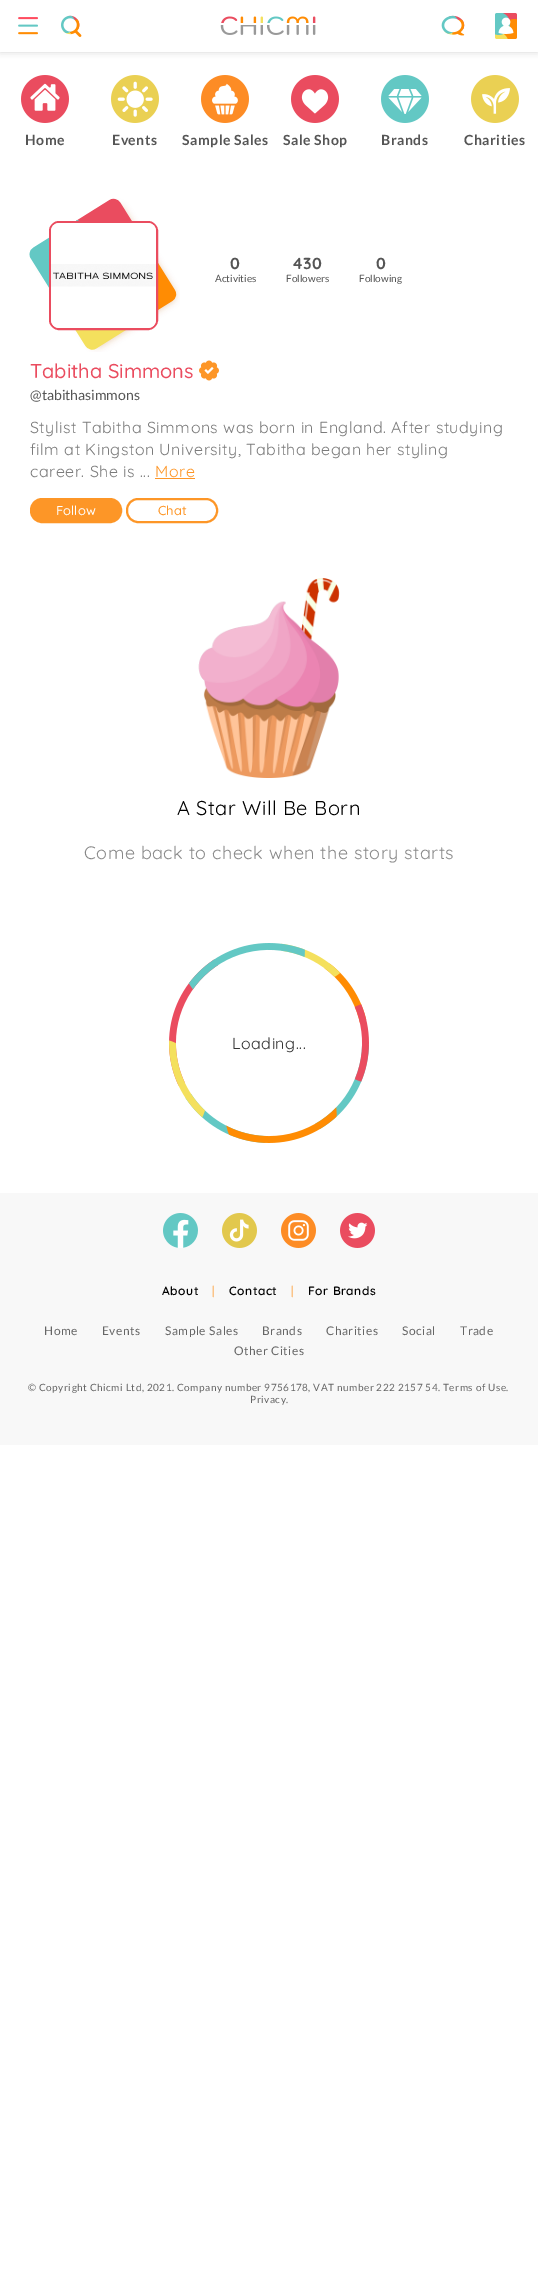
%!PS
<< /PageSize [538 2292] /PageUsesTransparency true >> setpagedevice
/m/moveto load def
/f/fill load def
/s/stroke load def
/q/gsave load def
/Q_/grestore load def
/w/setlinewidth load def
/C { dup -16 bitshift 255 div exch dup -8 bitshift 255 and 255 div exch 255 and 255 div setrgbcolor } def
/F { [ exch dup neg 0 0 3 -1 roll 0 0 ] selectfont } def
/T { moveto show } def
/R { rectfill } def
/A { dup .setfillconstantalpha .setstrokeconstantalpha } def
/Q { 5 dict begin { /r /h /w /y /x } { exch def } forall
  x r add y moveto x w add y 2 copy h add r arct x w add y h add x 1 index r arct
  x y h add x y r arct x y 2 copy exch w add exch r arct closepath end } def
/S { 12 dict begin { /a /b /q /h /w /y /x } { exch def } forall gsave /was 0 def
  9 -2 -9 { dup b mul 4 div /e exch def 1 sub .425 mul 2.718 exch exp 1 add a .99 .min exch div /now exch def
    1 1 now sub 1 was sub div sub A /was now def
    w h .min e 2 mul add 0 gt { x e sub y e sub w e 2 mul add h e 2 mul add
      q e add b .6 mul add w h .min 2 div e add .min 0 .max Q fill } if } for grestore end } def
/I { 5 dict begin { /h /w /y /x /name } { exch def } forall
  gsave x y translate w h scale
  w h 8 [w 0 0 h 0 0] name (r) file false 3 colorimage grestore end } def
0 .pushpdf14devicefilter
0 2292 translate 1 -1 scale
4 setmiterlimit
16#FFFFFF C
0 0 538 2292 R
q
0 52 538 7 rectclip
16#D4D4D4 C
0 0 538 52 0 3.5 1 S
Q_
(1.rgb) 18 17 20 18 I
(2.rgb) 61 15 21 22 I
(3.rgb) 220 16 96 19 I
(4.rgb) 441 15 24 21 I
(5.rgb) 495 13 22 26 I
(6.rgb) 21 75 48 48 I
/Lato-Bold 14 F
16#555555 C
25 145 m .5 0 (Home) ashow
(7.rgb) 111 75 48 48 I
112 145 m .5 0 (Events) ashow
(8.rgb) 201 75 48 48 I
182 145 m .5 0 (Sample Sales) ashow
(9.rgb) 291 75 48 48 I
283 145 m .5 0 (Sale Shop) ashow
(10.rgb) 381 75 48 48 I
381 145 m .5 0 (Brands) ashow
(11.rgb) 471 75 48 48 I
464 145 m .5 0 (Charities) ashow
(12.rgb) 29 198 151 154 I
16#FFFFFF C
50 222 107 107 9 Q q f Q_
16#EA4C5F C
2 w
s
(13.rgb) 51 223 105 105 I
/Quicksand-Bold 16 F
16#555555 C
230 269 m .5 0 (0) ashow
/Lato-Regular 10 F
(Activities) 215 282 T
/Quicksand-Bold 16 F
293 269 m .5 0 (430) ashow
/Lato-Regular 10 F
(Followers) 286 282 T
/Quicksand-Bold 16 F
376 269 m .5 0 (0) ashow
/Lato-Regular 10 F
(Following) 359 282 T
/Quicksand-Medium 20 F
16#EA4C5F C
(Tabitha Simmons) 30 378 T
(14.rgb) 199 360 20 21 I
/Lato-Regular 14 F
16#555555 C
(@tabithasimmons) 30 400 T
/Quicksand-Regular 16 F
16#7B7B7B C
30 433 m .5 0 (Stylist Tabitha Simmons was born in England. After studying) ashow
30 455 m .5 0 (film at Kingston University, Tabitha began her styling) ashow
30 477 m .5 0 (career. She is ...) ashow
16#FD9627 C
155 477 m .5 0 (More) ashow
155 478 40 1 R
31 499 90 23 11 Q q f Q_
s
/Quicksand-Medium 13 F
16#FFFFFF C
(Follow) 56 515 T
16#FD9627 C
127 499 90 23 11 Q s
(Chat) 158 515 T
(15.rgb) 198 578 142 200 I
/Quicksand-Regular 20 F
16#000000 C
177 815 m .5 0 (A Star Will Be Born) ashow
/Quicksand-Regular 18 F
16#888888 C
84 859 m .5 0 (Come back to check when the story starts) ashow
(16.rgb) 169 943 200 200 I
/Quicksand-Regular 16 F
16#333333 C
232 1049 m .5 0 (Loading...) ashow
16#F8F8F8 C
0 1193 538 252 R
(17.rgb) 163 1213 35 35 I
(18.rgb) 222 1213 35 35 I
(19.rgb) 281 1213 35 35 I
(20.rgb) 340 1213 35 35 I
/Quicksand-SemiBold 12 F
16#000000 C
162 1295 m .5 0 (About) ashow
/Quicksand-Regular 12 F
16#FD9627 C
212 1295 m .5 0 (|) ashow
/Quicksand-SemiBold 12 F
16#000000 C
229 1295 m .5 0 (Contact) ashow
/Quicksand-Regular 12 F
16#FD9627 C
291 1295 m .5 0 (|) ashow
/Quicksand-SemiBold 12 F
16#000000 C
308 1295 m .5 0 (For Brands) ashow
/Lato-Regular 12 F
16#666666 C
44 1335 m .5 0 (Home) ashow
102 1335 m .5 0 (Events) ashow
165 1335 m .5 0 (Sample Sales) ashow
262 1335 m .5 0 (Brands) ashow
326 1335 m .5 0 (Charities) ashow
402 1335 m .5 0 (Social) ashow
460 1335 m .5 0 (Trade) ashow
234 1355 m .5 0 (Other Cities) ashow
/Lato-Regular 10 F
28 1391 m .5 0 (© Copyright Chicmi Ltd, 2021. Company number 9756178, VAT number 222 2157 54. Terms of Use.) ashow
250 1403 m .5 0 (Privacy.) ashow
.poppdf14devicefilter showpage
